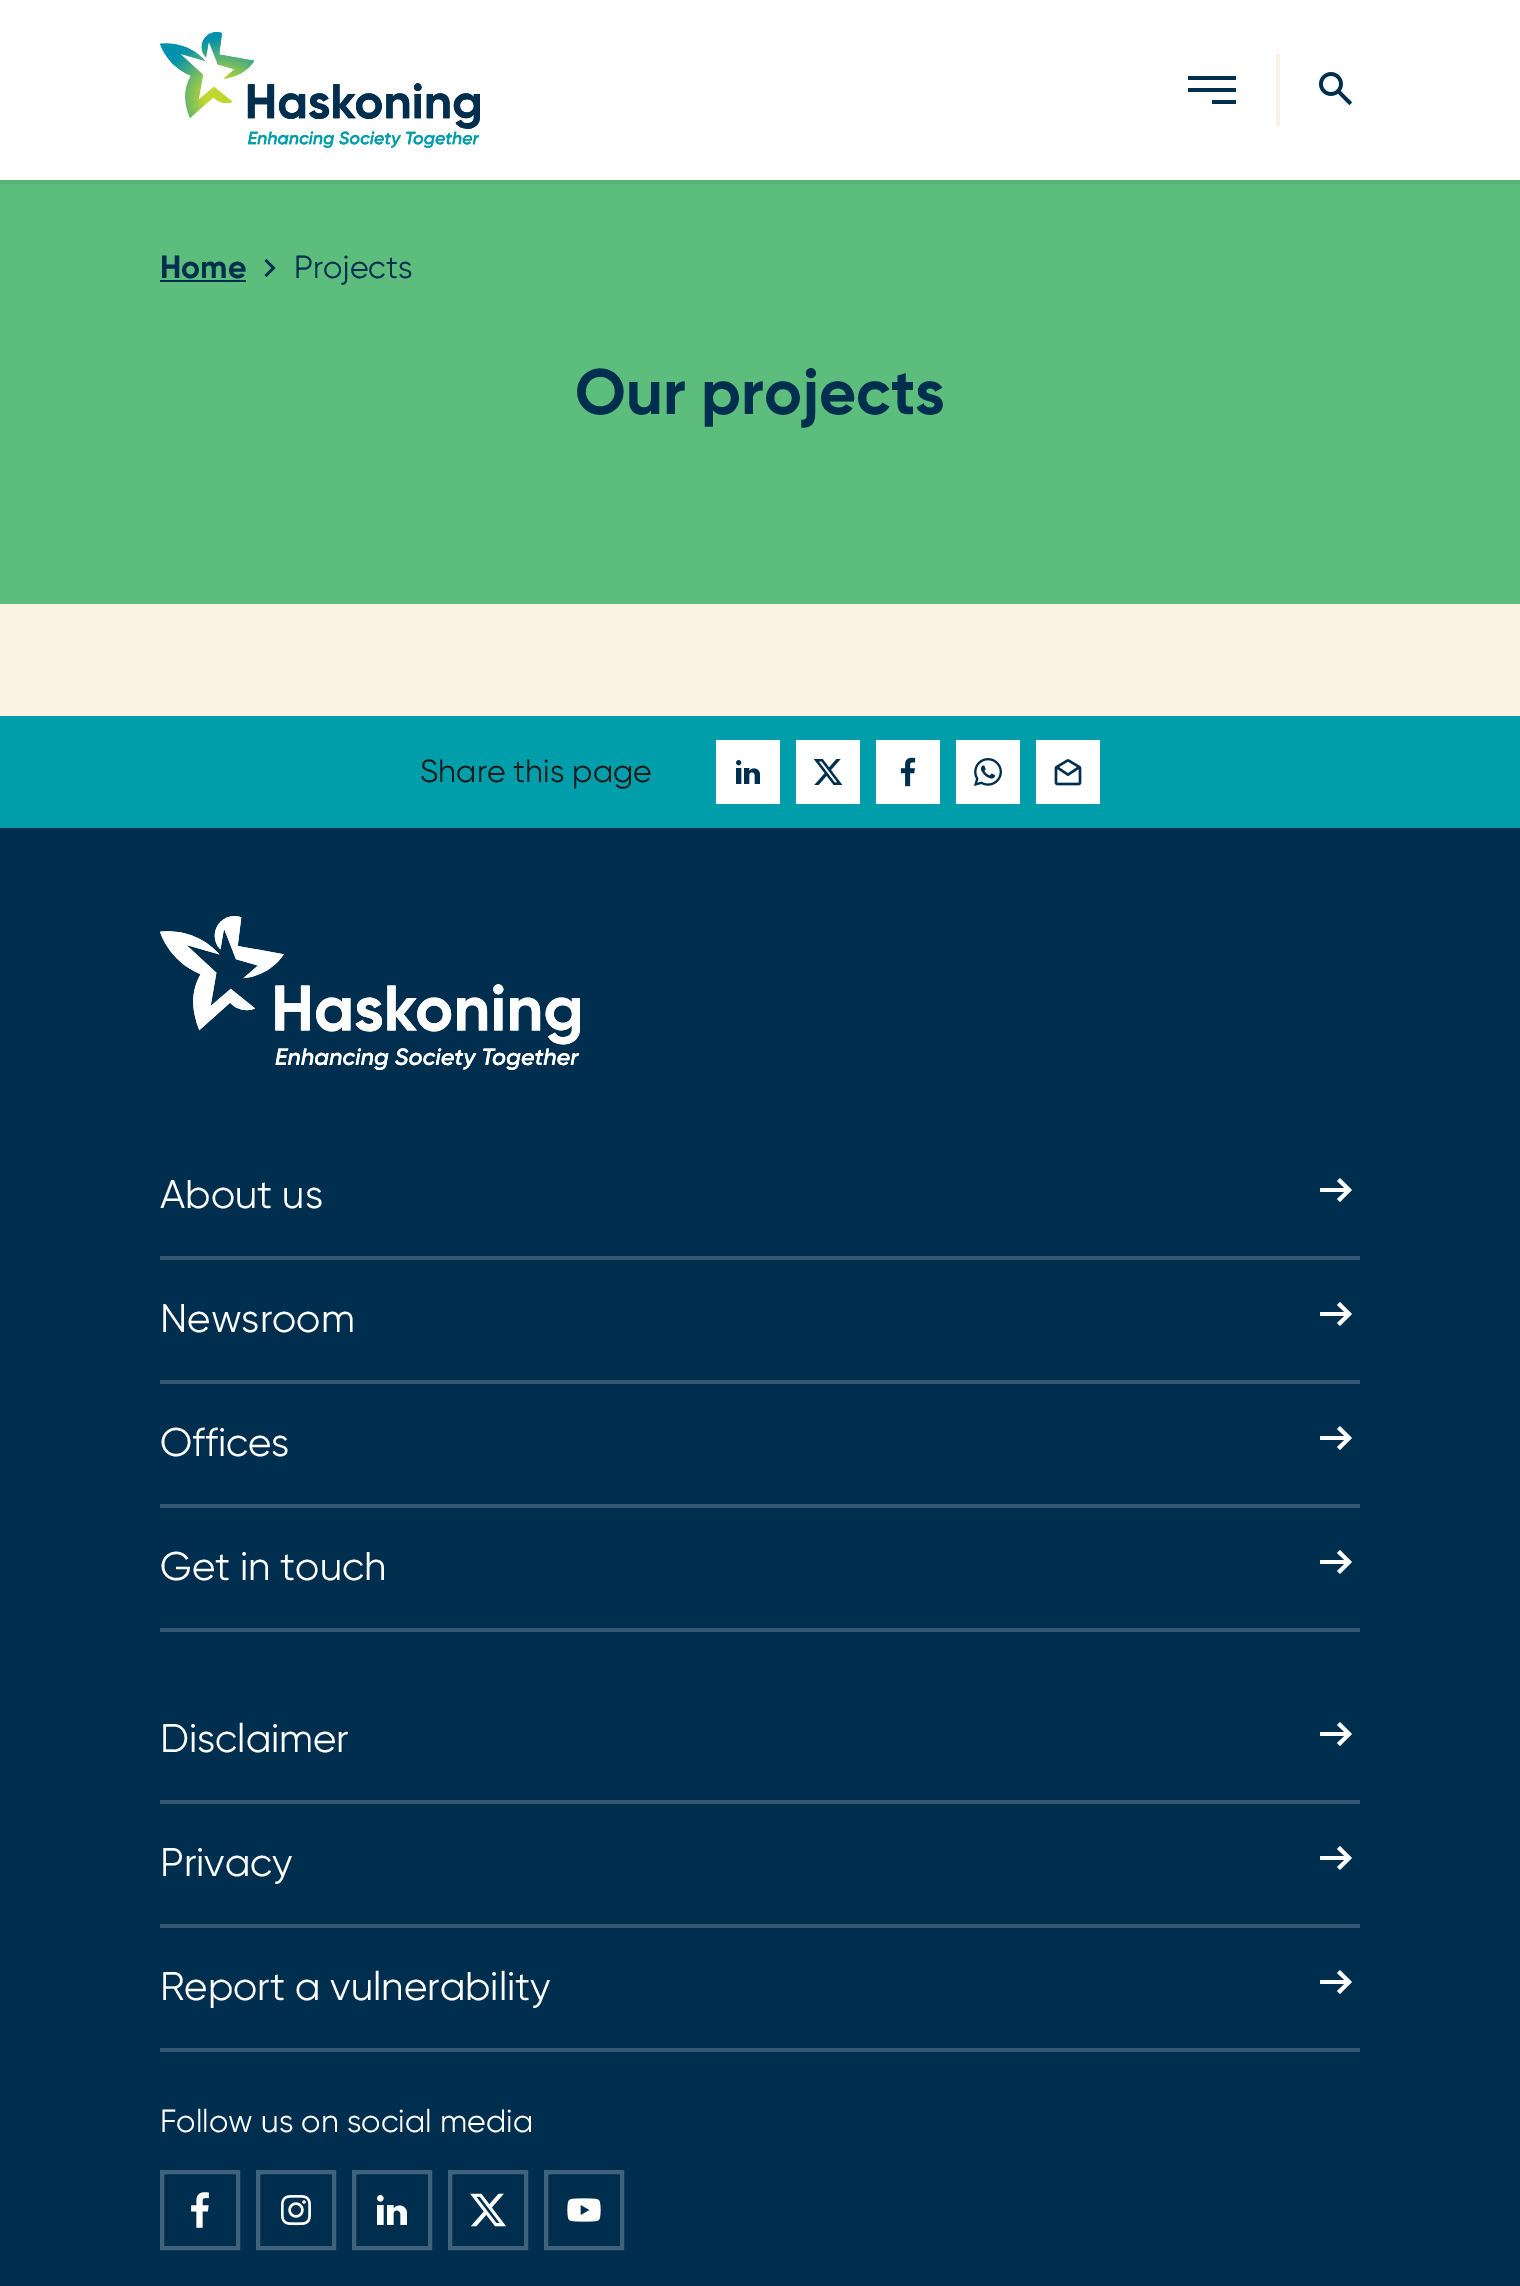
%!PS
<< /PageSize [1520 2286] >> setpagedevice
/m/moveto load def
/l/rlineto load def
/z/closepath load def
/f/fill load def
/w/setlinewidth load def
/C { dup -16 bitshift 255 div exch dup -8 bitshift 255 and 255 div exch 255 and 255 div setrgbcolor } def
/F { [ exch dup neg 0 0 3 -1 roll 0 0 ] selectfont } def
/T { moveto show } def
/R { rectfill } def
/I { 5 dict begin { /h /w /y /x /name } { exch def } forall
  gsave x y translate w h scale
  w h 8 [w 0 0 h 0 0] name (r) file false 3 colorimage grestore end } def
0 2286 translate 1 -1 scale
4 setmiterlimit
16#FAF2E3 C
0 0 1520 2286 R
16#57B477 C
0 180 1520 4 R
16#FFFFFF C
0 0 1520 180 R
(1.rgb) 160 32 320 116 I
16#002E4F C
1188 76 48 4 R
1188 88 48 4 R
1212 100 24 4 R
16#FAF2E3 C
1276 54 4 72 R
(2.rgb) 1319 72 34 34 I
16#5CBD7D C
0 184 1520 420 R
/Gilroy-Bold 32 F
16#002E4F C
(Home) 160 278 T
160 280 86 2 R
(3.rgb) 264 258 12 20 I
/Gilroy-Regular 32 F
(Projects) 294 278 T
/Gilroy-Bold 64 F
(Our projects) 575 414 T
16#009EAB C
0 716 1520 112 R
/Gilroy-Regular 32 F
16#1A1A18 C
(Share this page) 420 782 T
16#FFFFFF C
716 740 64 64 R
(4.rgb) 736 760 24 24 I
796 740 64 64 R
(5.rgb) 813 759 30 26 I
876 740 64 64 R
(6.rgb) 900 757 16 30 I
956 740 64 64 R
(7.rgb) 974 758 28 28 I
1036 740 64 64 R
(8.rgb) 1054 759 28 27 I
16#002E4F C
0 828 1520 1458 R
(9.rgb) 160 916 420 154 I
/Gilroy-Regular 40 F
16#FFFFFF C
(About us) 160 1208 T
1344.5 1192 m -7.5 7 l 3 3 l 12 -12 l -12 -12 l -3 3 l 7.5 7 l -24.5 0 l 0 4 l z f
16#335872 C
160 1256 1200 4 R
16#FFFFFF C
(Newsroom) 160 1332 T
1344.5 1316 m -7.5 7 l 3 3 l 12 -12 l -12 -12 l -3 3 l 7.5 7 l -24.5 0 l 0 4 l z f
16#335872 C
160 1380 1200 4 R
16#FFFFFF C
(Offices) 160 1456 T
1344.5 1440 m -7.5 7 l 3 3 l 12 -12 l -12 -12 l -3 3 l 7.5 7 l -24.5 0 l 0 4 l z f
16#335872 C
160 1504 1200 4 R
16#FFFFFF C
(Get in touch) 160 1580 T
1344.5 1564 m -7.5 7 l 3 3 l 12 -12 l -12 -12 l -3 3 l 7.5 7 l -24.5 0 l 0 4 l z f
16#335872 C
160 1628 1200 4 R
16#FFFFFF C
(Disclaimer) 160 1752 T
1344.5 1736 m -7.5 7 l 3 3 l 12 -12 l -12 -12 l -3 3 l 7.5 7 l -24.5 0 l 0 4 l z f
16#335872 C
160 1800 1200 4 R
16#FFFFFF C
(Privacy) 160 1876 T
1344.5 1860 m -7.5 7 l 3 3 l 12 -12 l -12 -12 l -3 3 l 7.5 7 l -24.5 0 l 0 4 l z f
16#335872 C
160 1924 1200 4 R
16#FFFFFF C
(Report a vulnerability) 160 2000 T
1344.5 1984 m -7.5 7 l 3 3 l 12 -12 l -12 -12 l -3 3 l 7.5 7 l -24.5 0 l 0 4 l z f
16#335872 C
160 2048 1200 4 R
/Gilroy-Regular 32 F
16#FFFFFF C
(Follow us on social media) 160 2132 T
16#40627B C
4 w
162 2172 76 76 rectstroke
(10.rgb) 191 2192 18 36 I
258 2172 76 76 rectstroke
(11.rgb) 281 2195 30 31 I
354 2172 76 76 rectstroke
(12.rgb) 377 2195 30 30 I
450 2172 76 76 rectstroke
(13.rgb) 470 2193 36 34 I
546 2172 76 76 rectstroke
(14.rgb) 567 2198 34 24 I
showpage
